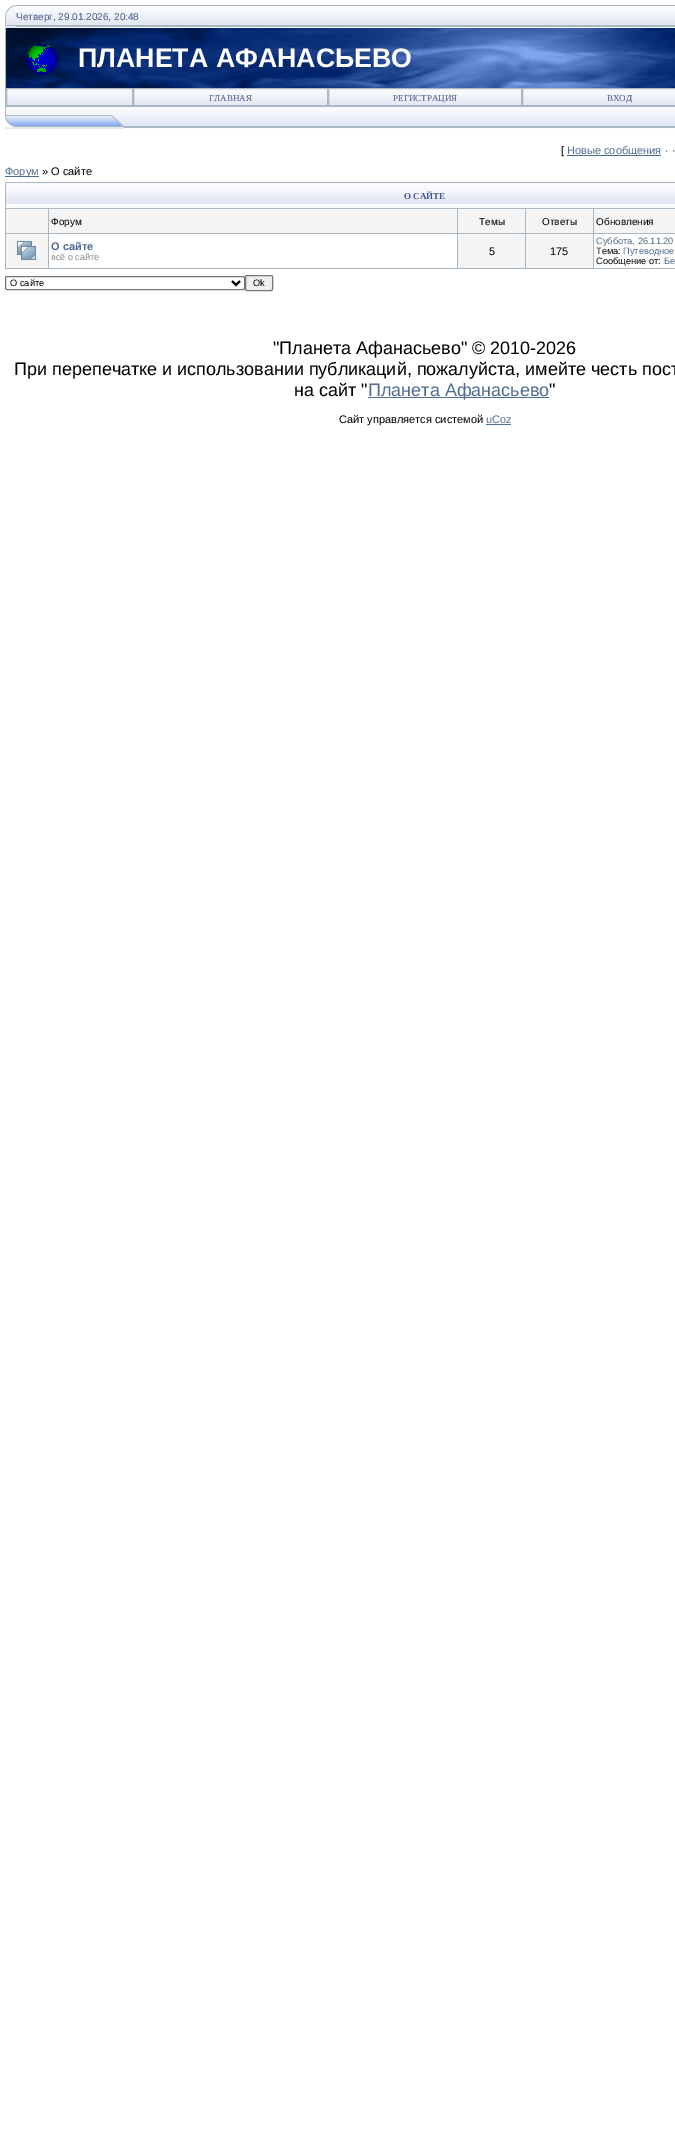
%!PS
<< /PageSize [675 2151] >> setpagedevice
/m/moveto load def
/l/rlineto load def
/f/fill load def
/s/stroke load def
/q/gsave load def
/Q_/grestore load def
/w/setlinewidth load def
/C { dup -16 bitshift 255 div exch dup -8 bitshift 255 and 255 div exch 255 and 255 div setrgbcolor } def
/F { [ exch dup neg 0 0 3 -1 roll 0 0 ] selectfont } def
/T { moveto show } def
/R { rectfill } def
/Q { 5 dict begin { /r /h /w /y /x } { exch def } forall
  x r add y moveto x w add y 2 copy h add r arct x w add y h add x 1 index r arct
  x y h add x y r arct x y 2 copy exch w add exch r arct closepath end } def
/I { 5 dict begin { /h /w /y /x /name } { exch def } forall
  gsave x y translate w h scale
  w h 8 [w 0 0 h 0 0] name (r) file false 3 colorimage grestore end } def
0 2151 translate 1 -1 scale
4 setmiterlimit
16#FFFFFF C
0 0 675 2151 R
16#E4E8F3 C
5 26 11 2 R
(1.rgb) 5 5 11 21 I
(2.rgb) 16 5 659 23 I
/LiberationSans-Regular 10 F
16#445588 C
(Четверг, 29.01.2026, 20:48) 16 20 T
16#A9B8C2 C
5 28 1 78 R
(3.rgb) 6 28 669 60 I
(4.rgb) 26 43 32 32 I
/LiberationSans-Bold 26.75 F
16#FFFFFF C
(ПЛАНЕТА АФАНАСЬЕВО) 78 67 T
(5.rgb) 7 89 125 16 I
16#A9B8C2 C
6.5 88.5 126 17 rectstroke
(6.rgb) 134 89 193 16 I
133.5 88.5 194 17 rectstroke
/LiberationSerif-Regular 9 F
16#445588 C
(ГЛАВНАЯ) 209 101 T
(7.rgb) 329 89 192 16 I
16#A9B8C2 C
328.5 88.5 193 17 rectstroke
16#445588 C
(РЕГИСТРАЦИЯ) 393 101 T
(8.rgb) 523 89 152 16 I
16#A9B8C2 C
522.5 88.5 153 17 rectstroke
16#445588 C
(ВХОД) 607 101 T
16#E4E8F3 C
5 127 119 2 R
(9.rgb) 5 106 119 21 I
(10.rgb) 124 106 551 23 I
/LiberationSans-Regular 11 F
16#000000 C
([) 561 154 T
16#4D6D91 C
567 155 94 1 R
(Новые сообщения) 567 154 T
16#000000 C
(· ·) 665 154 T
16#4D6D91 C
5 176 34 1 R
(Форум) 5 175 T
16#000000 C
(» О сайте) 42 175 T
16#A9B8C2 C
5 182 670 87 R
(11.rgb) 6 183 669 25 I
/LiberationSerif-Bold 9 F
16#445588 C
(О САЙТЕ) 404 199 T
16#F4F4F4 C
6 209 42 24 R
49 209 408 24 R
/LiberationSans-Regular 10 F
16#000000 C
(Форум) 51 225 T
16#F4F4F4 C
458 209 67 24 R
16#000000 C
(Темы) 479 225 T
16#F4F4F4 C
526 209 67 24 R
16#000000 C
(Ответы) 542 225 T
16#F4F4F4 C
594 209 81 24 R
16#000000 C
(Обновления) 596 225 T
16#F4F4F4 C
6 234 42 34 R
(12.rgb) 17 241 19 19 I
16#FFFFFF C
49 234 408 34 R
/LiberationSans-Bold 11 F
16#4D6D91 C
(О сайте) 51 250 T
/LiberationSans-Regular 9 F
16#888888 C
(всё о сайте) 51 260 T
16#F4F4F4 C
458 234 67 34 R
/LiberationSans-Regular 11 F
16#000000 C
(5) 489 255 T
16#F4F4F4 C
526 234 67 34 R
16#000000 C
(175) 550 255 T
16#FFFFFF C
594 234 81 34 R
/LiberationSans-Regular 9.25 F
16#4D6D91 C
(Суббота, 26.11.20) 596 244 T
16#000000 C
(Тема:) 596 254 T
16#4D6D91 C
(Путеводное) 623 254 T
16#000000 C
(Сообщение от:) 596 264 T
16#4D6D91 C
(Бе) 664 264 T
16#767676 C
5.5 276.5 239 13 1.5 Q s
16#000000 C
2 w
232 281 m 4 4 l 4 -4 l s
(О сайте) 10 286 T
16#EFEFEF C
245.5 275.5 27 15 1.5 Q q f Q_
16#767676 C
1 w
s
16#000000 C
(Ok) 253 286 T
/LiberationSans-Regular 18 F
("Планета Афанасьево" © 2010-2026) 273 354 T
(При перепечатке и использовании публикаций, пожалуйста, имейте честь пост) 14 375 T
(на сайт ") 294 396 T
16#4D6D91 C
368 397 181 1 R
(Планета Афанасьево) 368 396 T
16#000000 C
(") 549 396 T
/LiberationSans-Regular 11 F
(Сайт управляется системой) 339 423 T
16#4D6D91 C
(uCoz) 486 423 T
486 424 25 1 R
showpage
